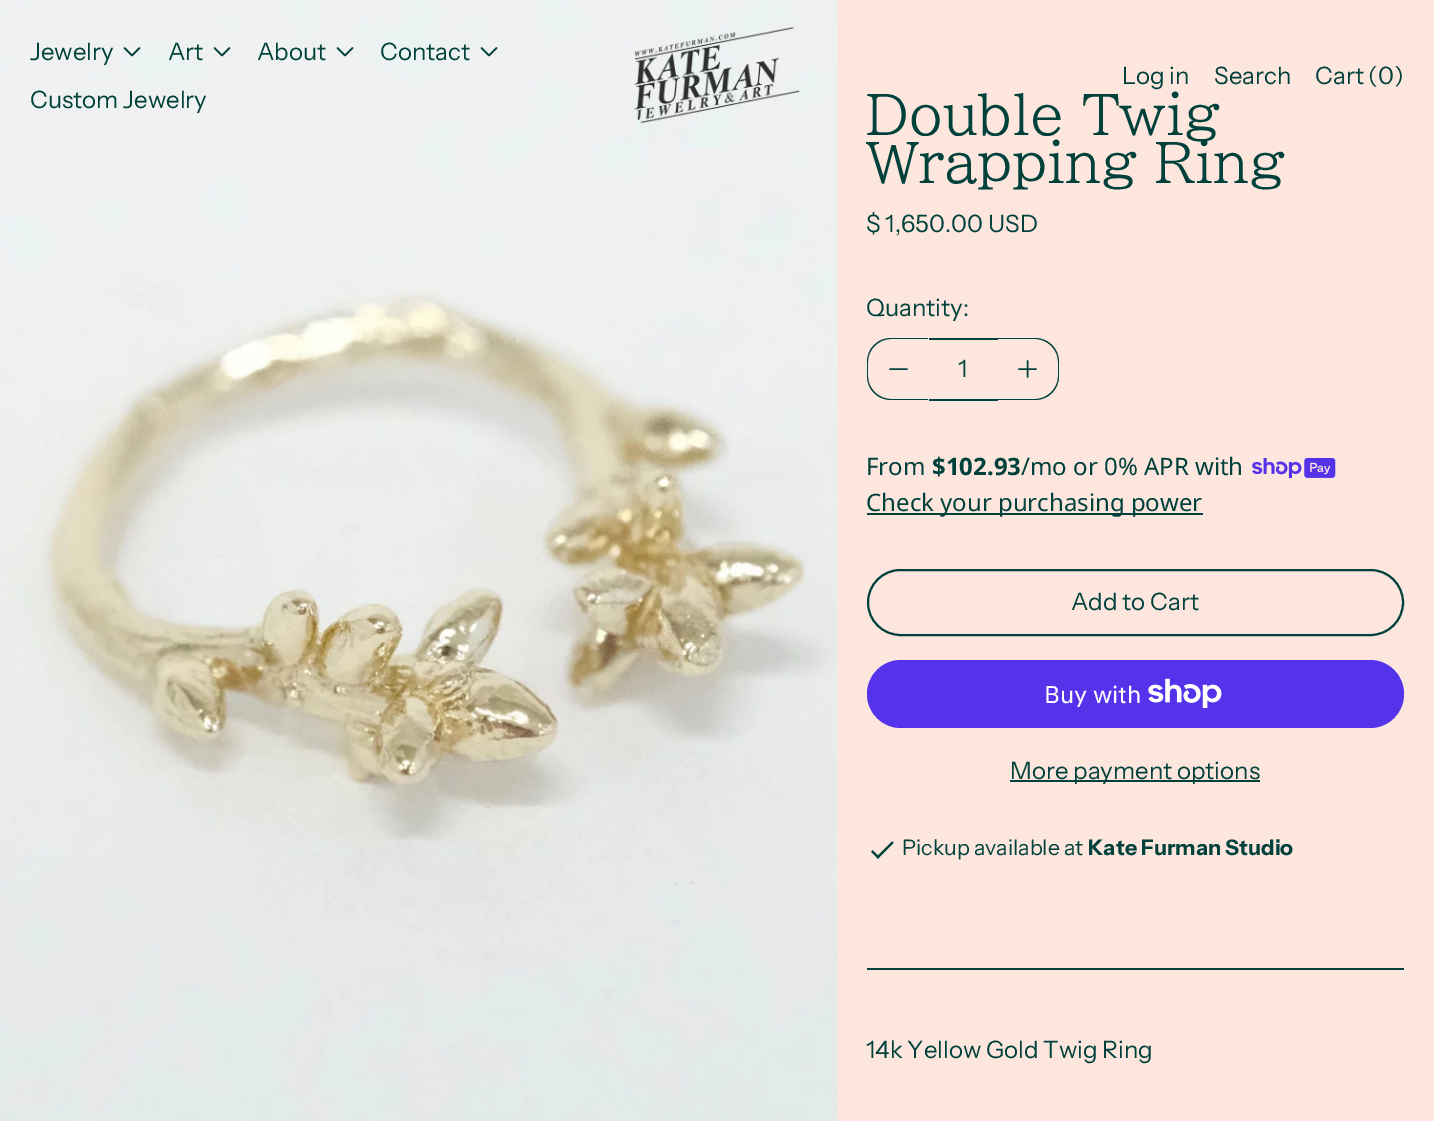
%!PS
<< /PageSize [1434 1121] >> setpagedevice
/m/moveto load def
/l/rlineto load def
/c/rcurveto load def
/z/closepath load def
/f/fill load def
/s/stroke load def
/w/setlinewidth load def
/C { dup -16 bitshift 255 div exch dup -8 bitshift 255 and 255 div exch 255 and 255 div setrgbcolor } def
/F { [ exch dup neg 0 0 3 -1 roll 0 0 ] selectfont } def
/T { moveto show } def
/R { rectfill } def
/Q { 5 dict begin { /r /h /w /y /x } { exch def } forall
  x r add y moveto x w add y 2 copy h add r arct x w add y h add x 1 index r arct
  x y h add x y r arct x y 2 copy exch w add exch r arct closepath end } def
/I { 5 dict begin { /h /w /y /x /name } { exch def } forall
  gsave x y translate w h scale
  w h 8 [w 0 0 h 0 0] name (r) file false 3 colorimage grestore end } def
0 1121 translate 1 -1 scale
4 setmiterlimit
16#FDE6DE C
0 0 1434 1121 R
(2.rgb) 0 0 837 1121 I
/InstrumentSans-Regular 24 F
16#00423B C
(Jewelry) 30 60 T
1.5 w
1 setlinecap
1 setlinejoin
139.5 48 m -7.5 7.5 l -7.5 -7.5 l s
(Art) 168 60 T
229.5 48 m -7.5 7.5 l -7.5 -7.5 l s
(About) 257 60 T
352.5 48 m -7.5 7.5 l -7.5 -7.5 l s
(Contact) 380 60 T
496.5 48 m -7.5 7.5 l -7.5 -7.5 l s
(Custom Jewelry) 30 108 T
(1.rgb) 634 27 166 97 I
(Log in) 1122 84 T
(Search) 1214 84 T
(Cart \(0\)) 1315 84 T
/BIZUDPMincho-Regular 54 F
(Double Twig) 866 135 T
(Wrapping Ring) 866 183 T
/InstrumentSans-Regular 24 F
($ 1,650.00 USD) 866 232 T
(Quantity:) 866 316 T
891 338 m 37 0 l 0 62 l -37 0 l -13 0 -24 -10 -24 -24 c 0 -14 l 0 -14 11 -24 24 -24 c z 891 339 m 37 0 l 0 60 l -37 0 l -12 0 -23 -10 -23 -23 c 0 -14 l 0 -13 11 -23 23 -23 c z eofill
890 369 m 17 0 l s
929 338 69 2 R
929 399 69 2 R
(1) 958 377 T
998 338 m 37 0 l 13 0 24 10 24 24 c 0 14 l 0 14 -11 24 -24 24 c -37 0 l z 998 339 m 37 0 l 12 0 23 10 23 23 c 0 14 l 0 13 -11 23 -23 23 c -37 0 l z eofill
1019 369 m 17 0 l 1027.5 361 m 0 16 l s
/NotoSans-Regular 24 F
(From) 866 475 T
/NotoSans-Bold 24 F
($102.93) 932 475 T
/NotoSans-Regular 24 F
(/mo or 0% APR with) 1021 475 T
(3.rgb) 1252 458 84 21 I
867 513 336 2 R
(Check your purchasing power) 866 511 T
2 w
0 setlinecap
0 setlinejoin
868 570 535 65 32.5 Q s
/InstrumentSans-Regular 24 F
(Add to Cart) 1071 610 T
16#5433EB C
867 660 537 68 34 Q f
/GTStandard-Regular 24 F
16#FFFFFF C
(Buy with) 1044 703 T
(4.rgb) 1148 678 74 30 I
16#00423B C
1010 780 250 2 R
/InstrumentSans-Regular 24 F
(More payment options) 1010 779 T
(5.rgb) 871 841 23 18 I
/InstrumentSans-Regular 21.4 F
(Pickup available at) 902 855 T
/InstrumentSans-Bold 21.4 F
(Kate Furman Studio) 1088 855 T
867 968 537 2 R
/InstrumentSans-Regular 24 F
(14k Yellow Gold Twig Ring) 866 1058 T
showpage
